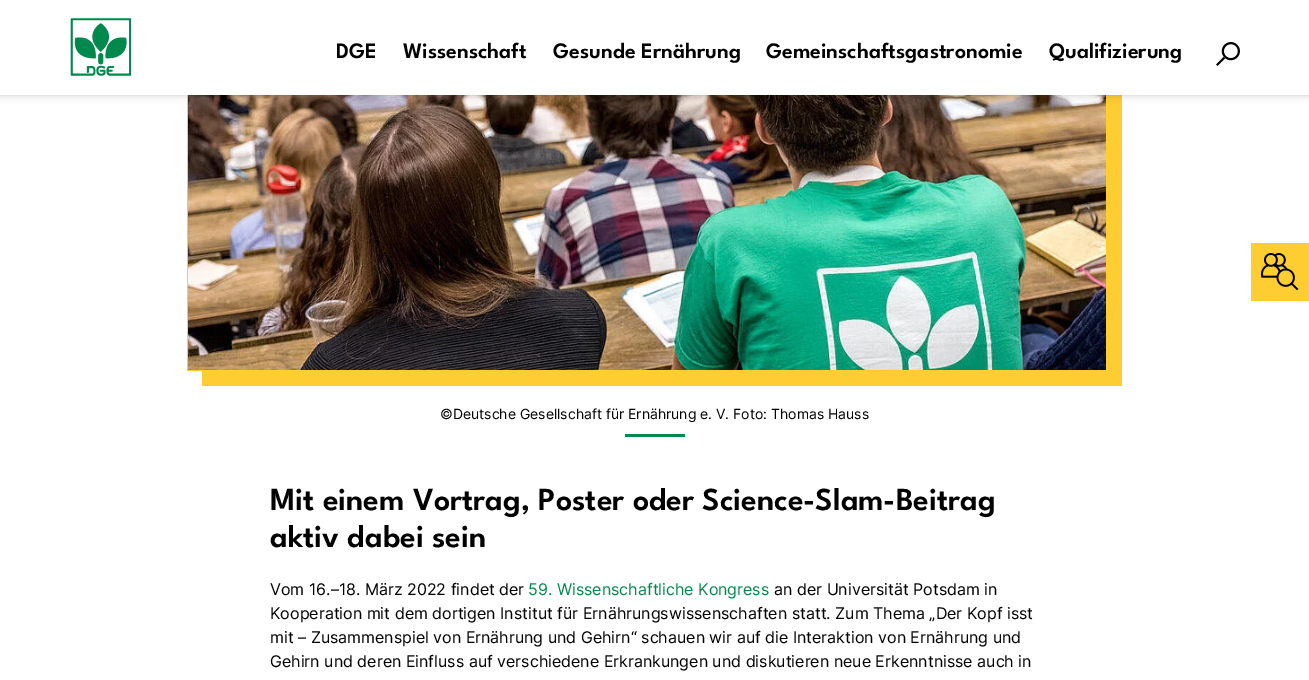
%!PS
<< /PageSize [1309 680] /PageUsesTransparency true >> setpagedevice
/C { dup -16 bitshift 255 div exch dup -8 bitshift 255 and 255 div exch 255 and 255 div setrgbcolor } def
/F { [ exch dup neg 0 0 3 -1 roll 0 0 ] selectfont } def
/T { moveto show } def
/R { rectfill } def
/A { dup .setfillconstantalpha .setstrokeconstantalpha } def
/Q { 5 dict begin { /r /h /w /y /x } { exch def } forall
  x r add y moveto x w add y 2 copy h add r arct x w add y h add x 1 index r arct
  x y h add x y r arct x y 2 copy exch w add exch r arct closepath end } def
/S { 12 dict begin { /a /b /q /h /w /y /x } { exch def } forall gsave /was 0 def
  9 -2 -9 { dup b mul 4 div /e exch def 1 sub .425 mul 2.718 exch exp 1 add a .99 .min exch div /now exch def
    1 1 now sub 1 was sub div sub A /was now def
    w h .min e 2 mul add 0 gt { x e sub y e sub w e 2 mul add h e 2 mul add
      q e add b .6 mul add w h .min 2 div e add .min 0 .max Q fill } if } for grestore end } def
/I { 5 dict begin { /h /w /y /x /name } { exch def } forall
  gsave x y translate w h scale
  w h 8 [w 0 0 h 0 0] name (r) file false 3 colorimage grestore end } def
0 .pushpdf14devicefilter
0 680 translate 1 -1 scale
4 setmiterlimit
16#FFFFFF C
0 0 1309 680 R
16#FECD31 C
202 95 920 291 R
187.5 -.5 919 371 rectstroke
(4.rgb) 188 95 918 275 I
16#000000 C
0 0 1309 95 0 4 .2 S
16#FFFFFF C
0 0 1309 95 R
(1.rgb) 70 18 61 58 I
/LeagueSpartan-SemiBold 22 F
16#000000 C
(DGE) 336 58 T
(Wissenschaft) 403 58 T
(Gesunde Ernährung) 553 58 T
(Gemeinschaftsgastronomie) 766 58 T
(Qualifizierung) 1049 58 T
(2.rgb) 1216 42 24 24 I
16#FECD31 C
1251 243 58 58 R
(3.rgb) 1261 253 38 38 I
/Inter-Regular 14 F
16#000000 C
(©Deutsche Gesellschaft für Ernährung e. V. Foto: Thomas Hauss) 440 419 T
16#00894D C
625 434 60 3 R
/LeagueSpartan-SemiBold 32 F
16#000000 C
(Mit einem Vortrag, Poster oder Science-Slam-Beitrag) 270 510 T
(aktiv dabei sein) 270 547 T
/Inter-Regular 16 F
(Vom 16.–18. März 2022 findet der) 270 595 T
16#00894D C
(59. Wissenschaftliche Kongress) 528 595 T
16#000000 C
(an der Universität Potsdam in) 774 595 T
(Kooperation mit dem dortigen Institut für Ernährungswissenschaften statt. Zum Thema „Der Kopf isst) 270 619 T
(mit – Zusammenspiel von Ernährung und Gehirn“ schauen wir auf die Interaktion von Ernährung und) 270 643 T
(Gehirn und deren Einfluss auf verschiedene Erkrankungen und diskutieren neue Erkenntnisse auch in) 270 667 T
.poppdf14devicefilter showpage
